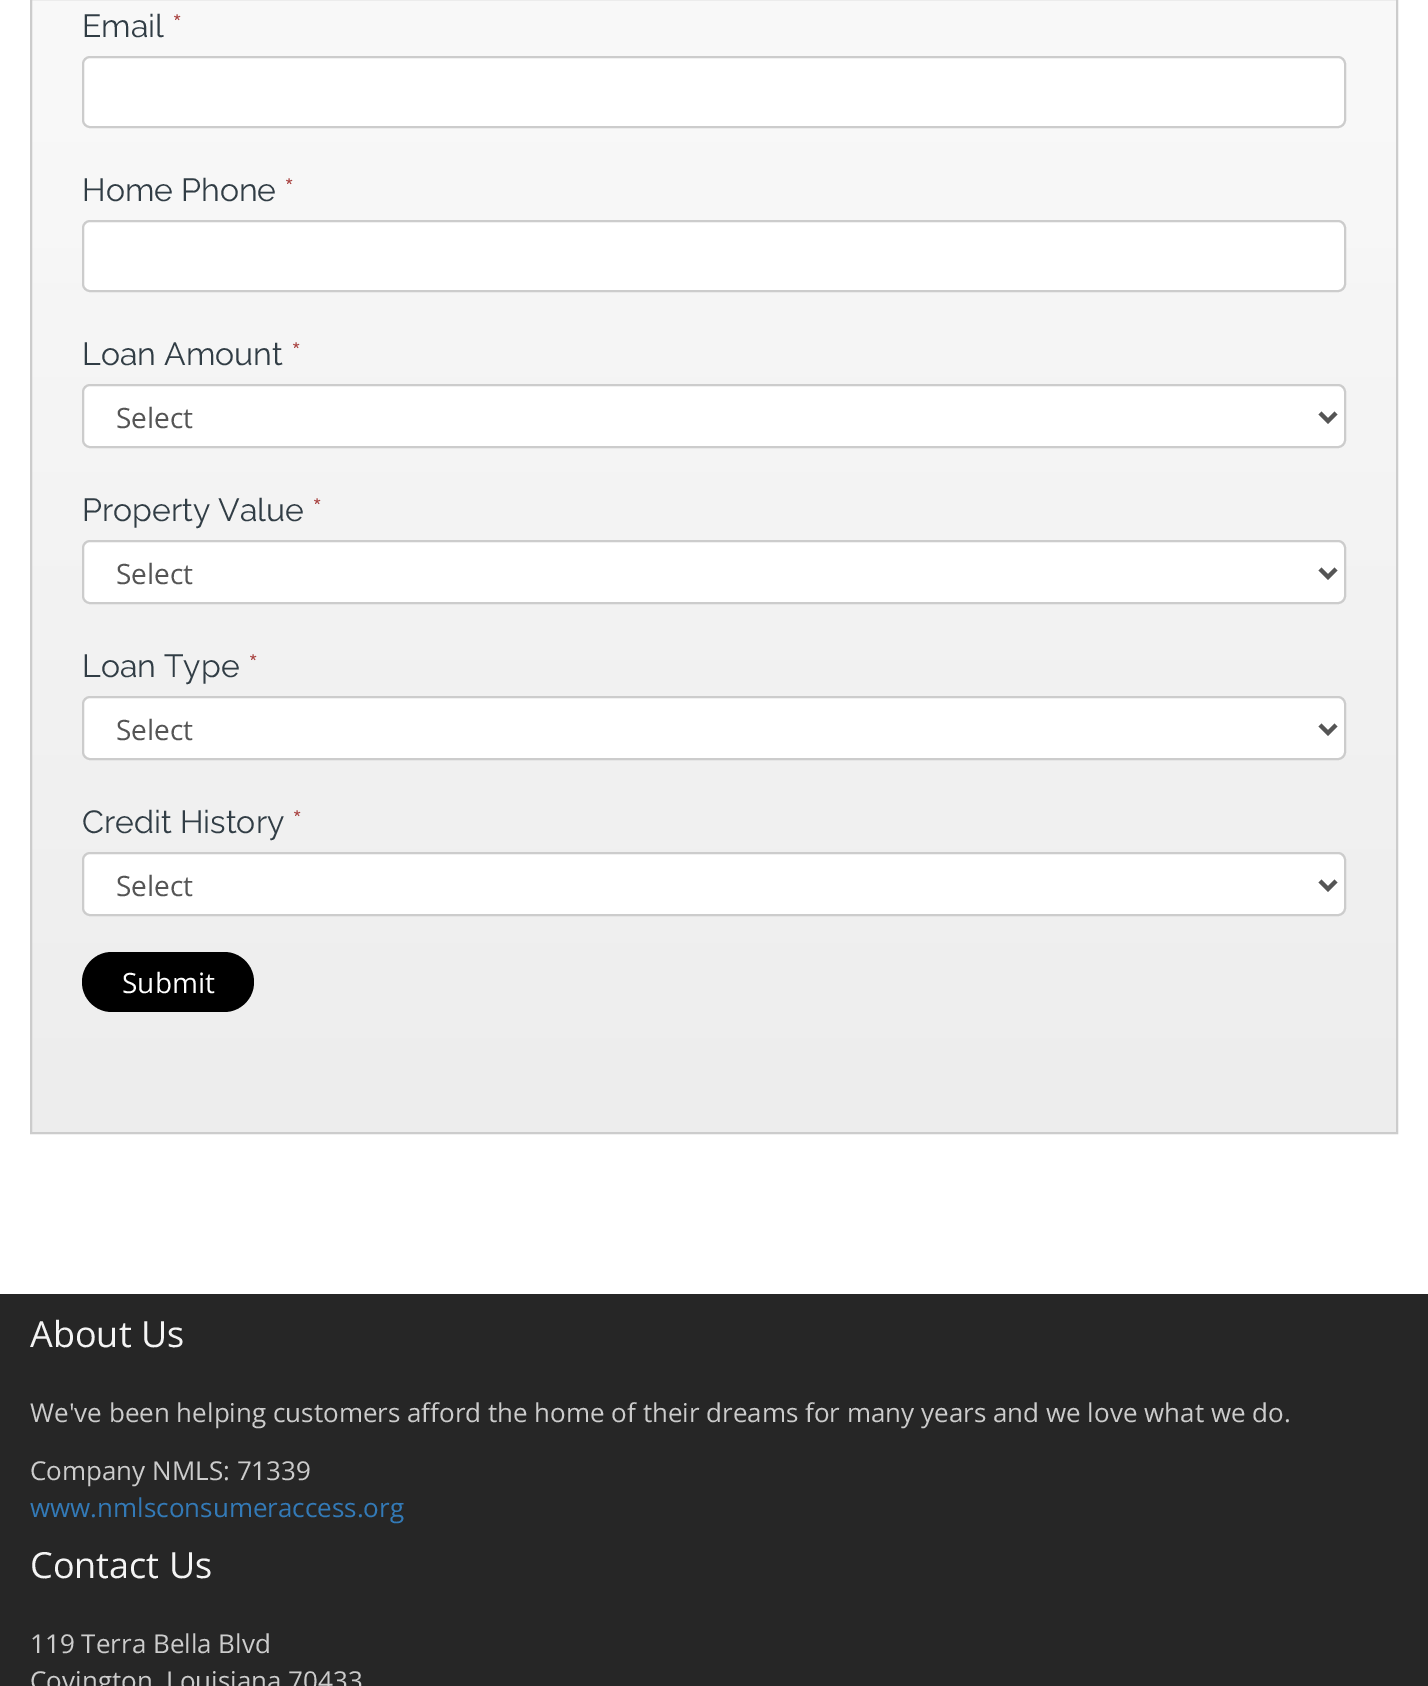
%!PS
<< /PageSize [1428 1686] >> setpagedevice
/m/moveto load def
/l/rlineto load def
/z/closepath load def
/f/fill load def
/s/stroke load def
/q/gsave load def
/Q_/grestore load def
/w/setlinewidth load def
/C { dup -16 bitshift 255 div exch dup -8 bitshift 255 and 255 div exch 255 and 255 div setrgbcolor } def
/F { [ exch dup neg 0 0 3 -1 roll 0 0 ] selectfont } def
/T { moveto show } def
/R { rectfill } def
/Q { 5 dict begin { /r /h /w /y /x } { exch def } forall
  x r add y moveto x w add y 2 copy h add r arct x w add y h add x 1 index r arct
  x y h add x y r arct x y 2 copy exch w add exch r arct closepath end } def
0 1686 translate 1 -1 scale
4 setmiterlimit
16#FFFFFF C
0 0 1428 1686 R
q 32 0 m 1364 0 l 0 1132 l -1364 0 l z clip newpath
<< /ShadingType 2 /ColorSpace /DeviceRGB /Coords [714 -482 714 1132] /Extend [true true] /Function << /FunctionType 3 /Domain [0 1] /Functions [<< /FunctionType 2 /Domain [0 1] /C0 [1 1 1] /C1 [.965 .965 .965] /N 1 >> << /FunctionType 2 /Domain [0 1] /C0 [.965 .965 .965] /C1 [.929 .929 .929] /N 1 >>] /Bounds [.47] /Encode [0 1 0 1] >> >> shfill Q_
16#CCCCCC C
2 w
31 -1 1366 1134 rectstroke
/Raleway-Regular 32 F
16#313D45 C
(Email) 82 37 T
16#A94442 C
(*) 172 37 T
16#FFFFFF C
83 57 1262 70 7 Q q f Q_
16#CCCCCC C
s
16#313D45 C
(Home Phone) 82 201 T
16#A94442 C
(*) 284 201 T
16#FFFFFF C
83 221 1262 70 7 Q q f Q_
16#CCCCCC C
s
16#313D45 C
(Loan Amount) 82 365 T
16#A94442 C
(*) 291 365 T
16#FFFFFF C
83 385 1262 62 7 Q q f Q_
16#CCCCCC C
s
16#555555 C
4 w
1320 413 m 8 8 l 8 -8 l s
/OpenSans-Regular 28 F
(Select) 116 428 T
/Raleway-Regular 32 F
16#313D45 C
(Property Value) 82 521 T
16#A94442 C
(*) 312 521 T
16#FFFFFF C
83 541 1262 62 7 Q q f Q_
16#CCCCCC C
2 w
s
16#555555 C
4 w
1320 569 m 8 8 l 8 -8 l s
/OpenSans-Regular 28 F
(Select) 116 584 T
/Raleway-Regular 32 F
16#313D45 C
(Loan Type) 82 677 T
16#A94442 C
(*) 248 677 T
16#FFFFFF C
83 697 1262 62 7 Q q f Q_
16#CCCCCC C
2 w
s
16#555555 C
4 w
1320 725 m 8 8 l 8 -8 l s
/OpenSans-Regular 28 F
(Select) 116 740 T
/Raleway-Regular 32 F
16#313D45 C
(Credit History) 82 833 T
16#A94442 C
(*) 292 833 T
16#FFFFFF C
83 853 1262 62 7 Q q f Q_
16#CCCCCC C
2 w
s
16#555555 C
4 w
1320 881 m 8 8 l 8 -8 l s
/OpenSans-Regular 28 F
(Select) 116 896 T
16#000000 C
82 952 172 60 30 Q f
16#FFFFFF C
(Submit) 122 993 T
16#262626 C
0 1294 1428 392 R
/OpenSans-Regular 36 F
16#F4F4F4 C
(About Us) 30 1347 T
/OpenSans-Regular 26 F
16#CCCCCC C
(We've been helping customers afford the home of their dreams for many years and we love what we do.) 30 1422 T
(Company NMLS: 71339) 30 1480 T
16#337AB7 C
(www.nmlsconsumeraccess.org) 30 1517 T
/OpenSans-Regular 36 F
16#F4F4F4 C
(Contact Us) 30 1578 T
/OpenSans-Regular 26 F
16#CCCCCC C
(119 Terra Bella Blvd) 30 1653 T
(Covington, Louisiana 70433) 30 1690 T
showpage
